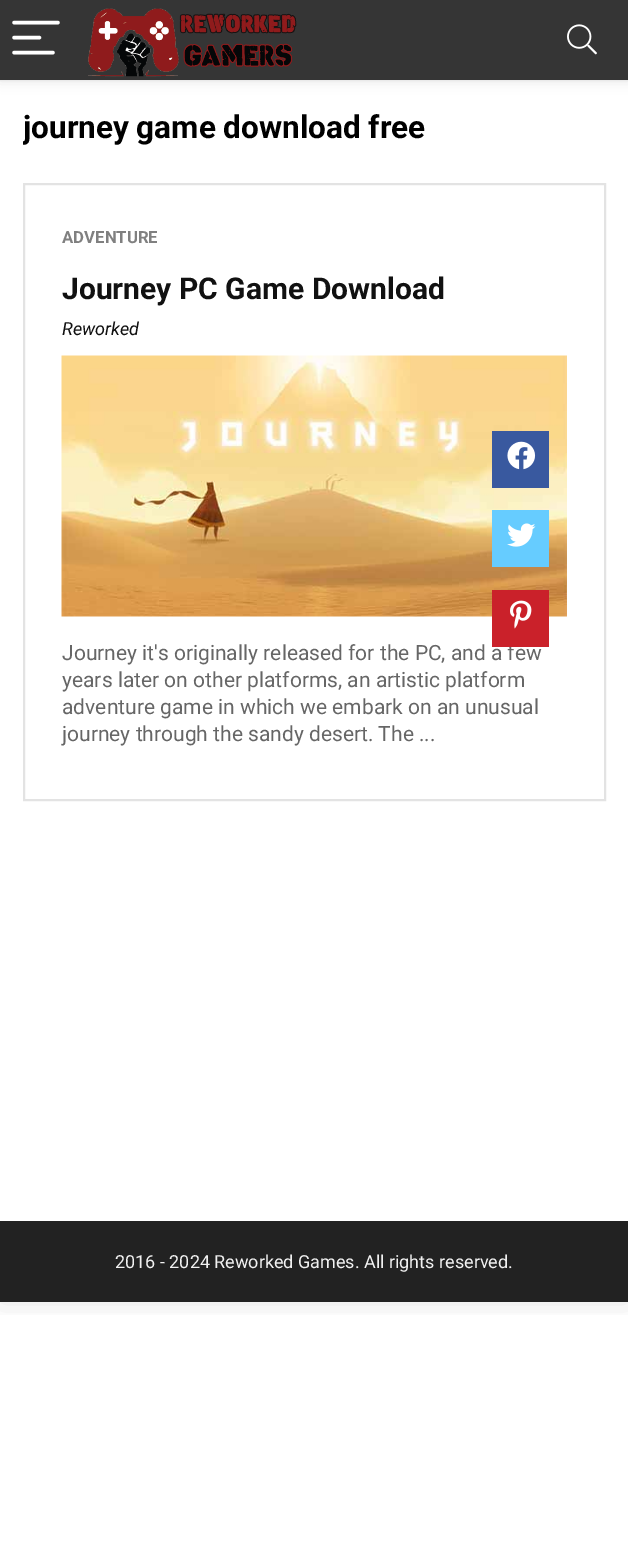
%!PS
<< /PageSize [628 1544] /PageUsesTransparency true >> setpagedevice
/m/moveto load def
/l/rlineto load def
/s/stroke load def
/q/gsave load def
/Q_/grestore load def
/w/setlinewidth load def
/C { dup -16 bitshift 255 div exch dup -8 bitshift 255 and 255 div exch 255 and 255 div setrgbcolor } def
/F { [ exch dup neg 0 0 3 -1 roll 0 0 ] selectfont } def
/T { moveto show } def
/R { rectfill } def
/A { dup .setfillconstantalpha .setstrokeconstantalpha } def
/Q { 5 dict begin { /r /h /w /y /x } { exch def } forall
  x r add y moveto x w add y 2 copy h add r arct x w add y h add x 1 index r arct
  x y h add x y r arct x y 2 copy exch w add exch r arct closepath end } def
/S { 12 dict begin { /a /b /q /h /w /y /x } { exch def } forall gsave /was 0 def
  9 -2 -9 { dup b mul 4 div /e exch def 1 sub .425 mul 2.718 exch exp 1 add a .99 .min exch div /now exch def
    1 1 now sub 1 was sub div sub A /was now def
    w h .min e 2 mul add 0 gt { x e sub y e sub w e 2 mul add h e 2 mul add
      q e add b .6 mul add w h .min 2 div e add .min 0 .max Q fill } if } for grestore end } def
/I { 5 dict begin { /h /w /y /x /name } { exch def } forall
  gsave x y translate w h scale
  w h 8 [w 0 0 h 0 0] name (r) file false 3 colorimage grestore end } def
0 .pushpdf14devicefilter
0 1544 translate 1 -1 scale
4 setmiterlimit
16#FFFFFF C
0 0 628 1544 R
q
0 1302 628 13 rectclip
16#000000 C
0 0 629 1302 0 15 .1 S
Q_
0.03 A
16#000000 C
2 w
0 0 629 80 rectstroke
1 A
0 2 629 79 0 6 .1 S
16#353535 C
0 0 628 80 R
16#FFFFFF C
3.4 w
1 setlinecap
14 22.5 m 44 0 l 14 37.5 m 25.5 0 l 14 52.5 m 39 0 l s
(1.rgb) 88 8 209 69 I
(2.rgb) 567 24 30 31 I
q
23 110 583 36 rectclip
/Roboto-Bold 31.5 F
16#000000 C
(journey game download free) 23 138 T
Q_
16#E3E3E3 C
2 w
0 setlinecap
24 184 581 616 rectstroke
/Roboto-Bold 16.75 F
16#808080 C
(ADVENTURE) 62 243 T
/Roboto-Bold 30 F
16#111111 C
(Journey PC Game Download) 62 299 T
/Roboto-Italic 18 F
(Reworked) 62 335 T
(3.rgb) 61 355 506 262 I
16#39599F C
492 431 57 57 R
(4.rgb) 507 441 29 29 I
16#66CCFF C
492 510 57 57 R
(5.rgb) 507 523 29 24 I
/Roboto-Regular 21 F
16#666666 C
(Journey it's originally released for the PC, and a few) 62 660 T
16#CA212A C
492 590 57 57 R
(6.rgb) 510 600 22 29 I
16#666666 C
(years later on other platforms, an artistic platform) 62 687 T
(adventure game in which we embark on an unusual) 62 714 T
(journey through the sandy desert. The ...) 62 741 T
16#222222 C
0 1221 628 81 R
/Roboto-Regular 18 F
16#F1F1F1 C
(2016 - 2024 Reworked Games. All rights reserved.) 115 1268 T
.poppdf14devicefilter showpage
